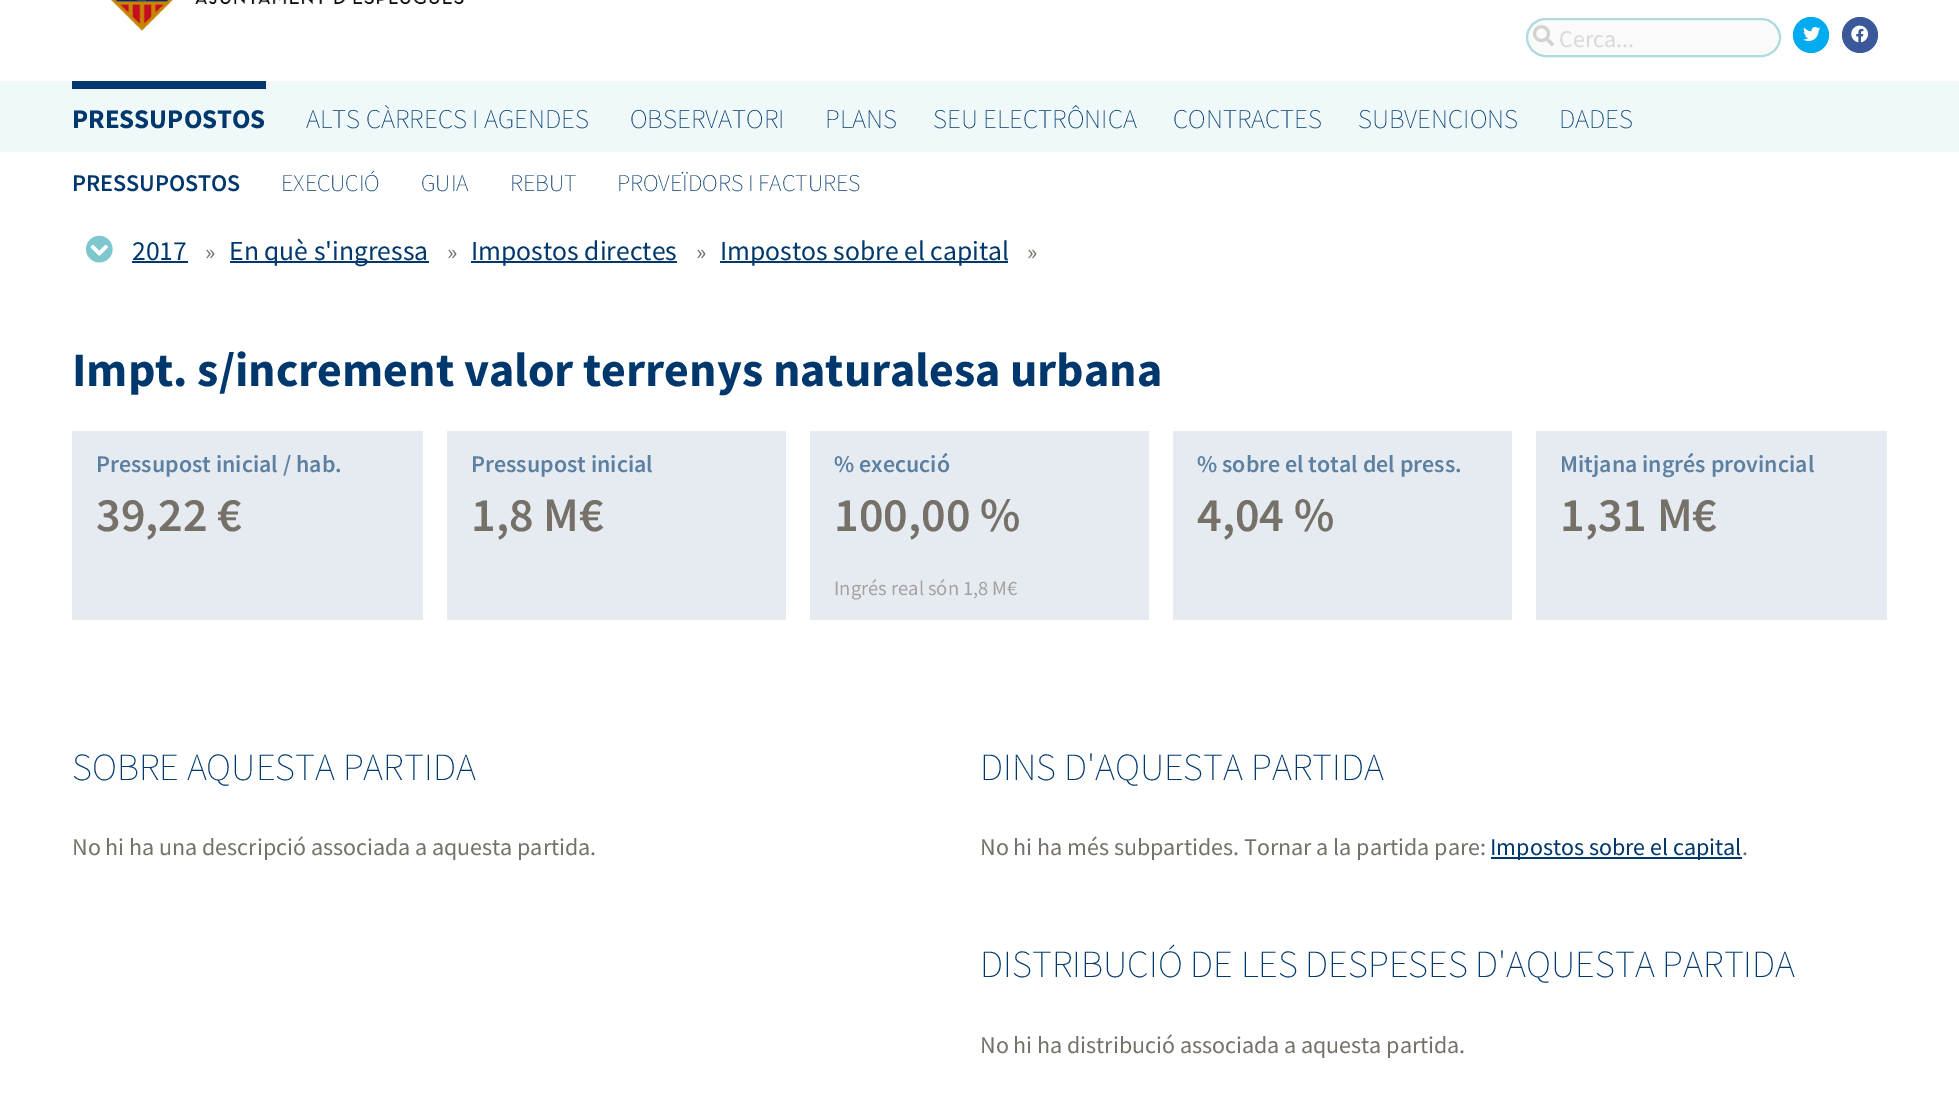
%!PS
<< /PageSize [1959 1118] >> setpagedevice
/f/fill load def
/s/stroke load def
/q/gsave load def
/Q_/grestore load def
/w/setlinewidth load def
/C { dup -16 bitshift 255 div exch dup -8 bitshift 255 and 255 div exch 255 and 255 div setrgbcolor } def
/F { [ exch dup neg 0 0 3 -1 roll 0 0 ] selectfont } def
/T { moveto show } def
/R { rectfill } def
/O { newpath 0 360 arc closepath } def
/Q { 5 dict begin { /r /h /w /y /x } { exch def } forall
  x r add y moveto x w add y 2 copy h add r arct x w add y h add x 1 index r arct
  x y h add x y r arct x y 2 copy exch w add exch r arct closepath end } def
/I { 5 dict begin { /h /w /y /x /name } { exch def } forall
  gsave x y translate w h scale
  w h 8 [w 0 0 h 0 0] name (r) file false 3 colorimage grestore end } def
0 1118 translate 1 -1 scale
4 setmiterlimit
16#FFFFFF C
0 0 1959 1118 R
(1.rgb) 110 0 354 31 I
16#FAFAFA C
1527 19 253 37 18.5 Q q f Q_
16#AFDADE C
2 w
s
(2.rgb) 1533 25 21 21 I
/SourceSansPro-Regular 24 F
16#D9D9D9 C
(Cerca...) 1559 47 T
16#00ABEF C
1811 35 18 O f
(3.rgb) 1803 27 18 14 I
16#3A589A C
1860 35 18 O f
(4.rgb) 1851 25 18 18 I
16#F0F9FA C
0 81 1959 71 R
16#00386E C
72 81 194 8 R
/SourceSansPro-Bold 27 F
(PRESSUPOSTOS) 72 128 T
/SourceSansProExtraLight-ExtraLight 27 F
(ALTS CÀRRECS I AGENDES) 306 128 T
(OBSERVATORI) 630 128 T
(PLANS) 825 128 T
(SEU ELECTRÔNICA) 933 128 T
(CONTRACTES) 1173 128 T
(SUBVENCIONS) 1358 128 T
(DADES) 1559 128 T
/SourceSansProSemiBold-SemiBold 24 F
(PRESSUPOSTOS) 72 191 T
/SourceSansProExtraLight-ExtraLight 24 F
(EXECUCIÓ) 281 191 T
(GUIA) 421 191 T
(REBUT) 510 191 T
(PROVEÏDORS I FACTURES) 617 191 T
(5.rgb) 86 235 27 28 I
/SourceSansPro-Regular 27.6 F
(2017) 132 260 T
132 261 56 2 R
/SourceSansPro-Regular 24 F
16#767168 C
(») 205 260 T
16#00386E C
230 261 199 2 R
/SourceSansPro-Regular 27.6 F
(En què s'ingressa) 229 260 T
/SourceSansPro-Regular 24 F
16#767168 C
(») 447 260 T
16#00386E C
471 261 206 2 R
/SourceSansPro-Regular 27.6 F
(Impostos directes) 471 260 T
/SourceSansPro-Regular 24 F
16#767168 C
(») 696 260 T
16#00386E C
720 261 288 2 R
/SourceSansPro-Regular 27.6 F
(Impostos sobre el capital) 720 260 T
/SourceSansPro-Regular 24 F
16#767168 C
(») 1027 260 T
/SourceSansPro-Bold 48 F
16#00386E C
(Impt. s/increment valor terrenys naturalesa urbana) 72 386 T
16#E6EBF1 C
72 431 351 189 R
/SourceSansProSemiBold-SemiBold 24 F
16#5C80A2 C
(Pressupost inicial / hab.) 96 472 T
/SourceSansProSemiBold-SemiBold 48 F
16#767168 C
(39,22 €) 96 531 T
16#E6EBF1 C
447 431 339 189 R
/SourceSansProSemiBold-SemiBold 24 F
16#5C80A2 C
(Pressupost inicial) 471 472 T
/SourceSansProSemiBold-SemiBold 48 F
16#767168 C
(1,8 M€) 471 531 T
16#E6EBF1 C
810 431 339 189 R
/SourceSansProSemiBold-SemiBold 24 F
16#5C80A2 C
(% execució) 834 472 T
/SourceSansProSemiBold-SemiBold 48 F
16#767168 C
(100,00 %) 834 531 T
/SourceSansPro-Regular 20.5 F
16#A3A29F C
(Ingrés real són 1,8 M€) 834 595 T
16#E6EBF1 C
1173 431 339 189 R
/SourceSansProSemiBold-SemiBold 24 F
16#5C80A2 C
(% sobre el total del press.) 1197 472 T
/SourceSansProSemiBold-SemiBold 48 F
16#767168 C
(4,04 %) 1197 531 T
16#E6EBF1 C
1536 431 351 189 R
/SourceSansProSemiBold-SemiBold 24 F
16#5C80A2 C
(Mitjana ingrés provincial) 1560 472 T
/SourceSansProSemiBold-SemiBold 48 F
16#767168 C
(1,31 M€) 1560 531 T
/SourceSansProExtraLight-ExtraLight 38.4 F
16#00386E C
(SOBRE AQUESTA PARTIDA) 72 780 T
/SourceSansPro-Regular 24 F
16#767168 C
(No hi ha una descripció associada a aquesta partida.) 72 855 T
/SourceSansProExtraLight-ExtraLight 38.4 F
16#00386E C
(DINS D'AQUESTA PARTIDA) 980 780 T
/SourceSansPro-Regular 24 F
16#767168 C
(No hi ha més subpartides. Tornar a la partida pare:) 980 855 T
16#00386E C
1491 857 251 2 R
(Impostos sobre el capital) 1490 855 T
16#767168 C
(.) 1742 855 T
/SourceSansProExtraLight-ExtraLight 38.4 F
16#00386E C
(DISTRIBUCIÓ DE LES DESPESES D'AQUESTA PARTIDA) 980 977 T
/SourceSansPro-Regular 24 F
16#767168 C
(No hi ha distribució associada a aquesta partida.) 980 1053 T
showpage
